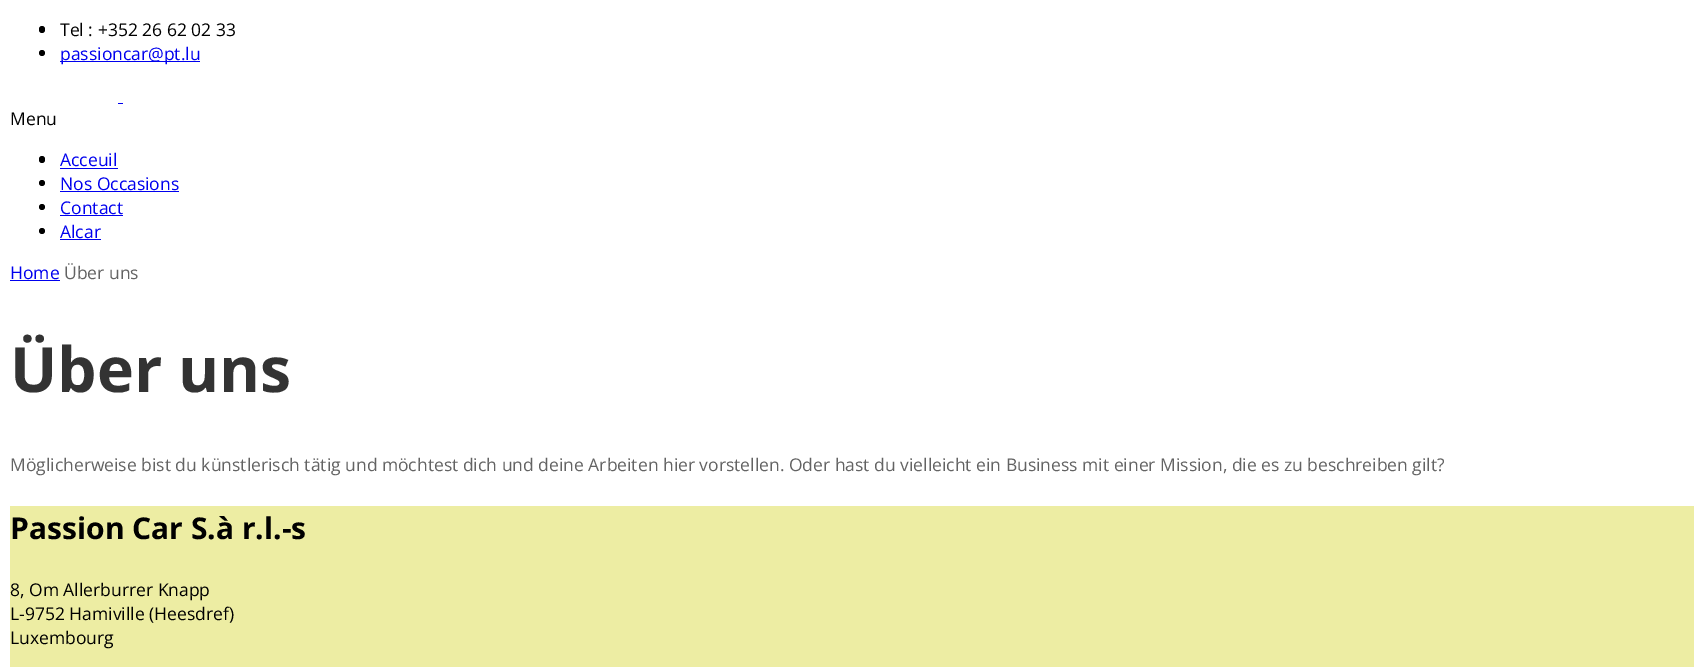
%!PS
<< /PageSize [1703 667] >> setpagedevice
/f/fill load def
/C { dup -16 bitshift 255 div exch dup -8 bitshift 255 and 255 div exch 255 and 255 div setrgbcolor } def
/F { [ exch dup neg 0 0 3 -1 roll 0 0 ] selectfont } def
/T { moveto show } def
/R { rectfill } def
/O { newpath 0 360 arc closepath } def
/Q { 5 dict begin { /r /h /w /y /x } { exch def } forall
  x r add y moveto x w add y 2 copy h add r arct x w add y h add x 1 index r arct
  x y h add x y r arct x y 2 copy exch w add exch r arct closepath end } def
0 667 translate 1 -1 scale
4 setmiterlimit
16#FFFFFF C
0 0 1703 667 R
16#000000 C
39 26 6 7 3 Q f
/OpenSans-Regular 17.5 F
(Tel : +352 26 62 02 33) 60 36 T
42 53 3 O f
16#0000EE C
60 61 140 1 R
(passioncar@pt.lu) 60 60 T
118 103 5 1 R
16#000000 C
(Menu) 10 125 T
39 156 6 7 3 Q f
16#0000EE C
(Acceuil) 60 166 T
60 168 58 1 R
16#000000 C
42 183 3 O f
16#0000EE C
(Nos Occasions) 60 190 T
60 191 119 1 R
16#000000 C
42 207 3 O f
16#0000EE C
(Contact) 60 214 T
60 215 63 1 R
16#000000 C
42 231 3 O f
16#0000EE C
(Alcar) 60 238 T
60 239 41 1 R
(Home) 10 279 T
10 280 50 1 R
16#636363 C
(Über uns) 64 279 T
/OpenSans-Bold 62.5 F
16#333333 C
(Über uns) 10 392 T
/OpenSans-Regular 17.5 F
16#636363 C
(Möglicherweise bist du künstlerisch tätig und möchtest dich und deine Arbeiten hier vorstellen. Oder hast du vielleicht ein Business mit einer Mission, die es zu beschreiben gilt?) 10 471 T
16#EDEDA3 C
10 506 1684 161 R
/OpenSans-Bold 30 F
16#000000 C
(Passion Car S.à r.l.-s) 10 539 T
/OpenSans-Regular 17.5 F
(8, Om Allerburrer Knapp) 10 596 T
(L-9752 Hamiville \(Heesdref\)) 10 620 T
(Luxembourg) 10 644 T
showpage
